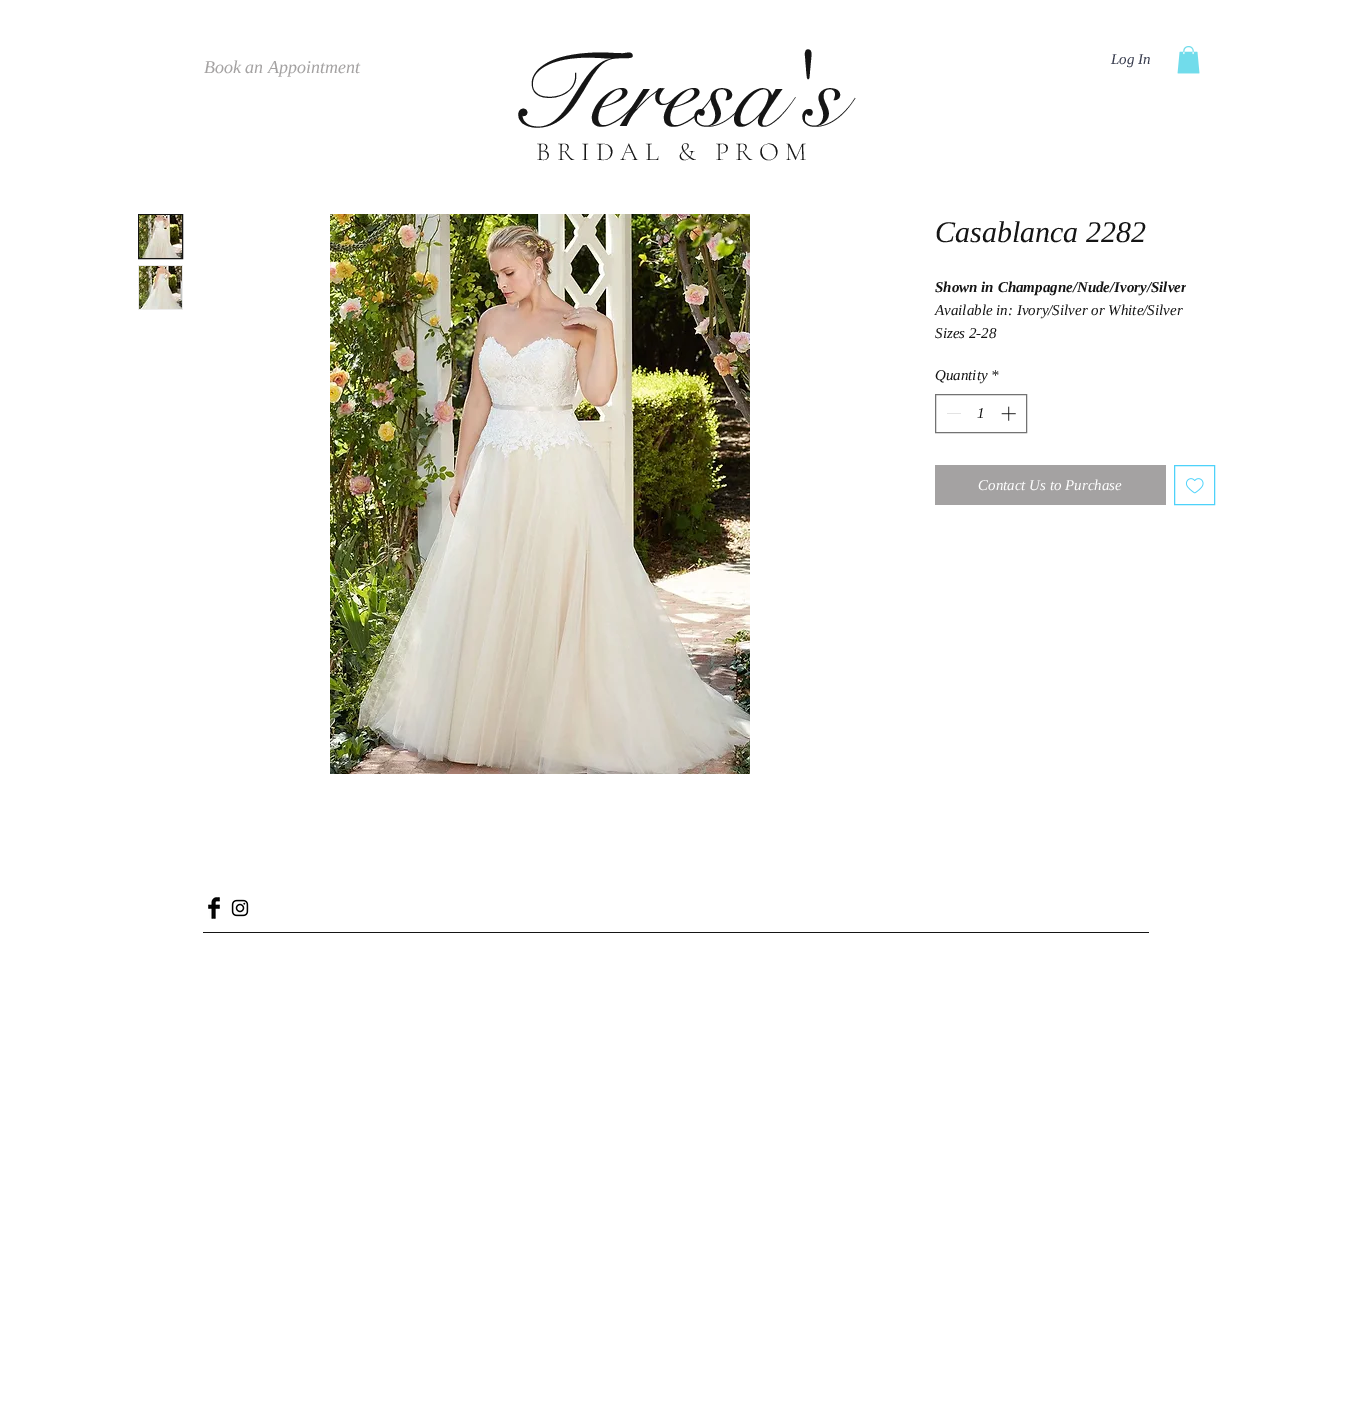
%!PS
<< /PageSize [1349 1416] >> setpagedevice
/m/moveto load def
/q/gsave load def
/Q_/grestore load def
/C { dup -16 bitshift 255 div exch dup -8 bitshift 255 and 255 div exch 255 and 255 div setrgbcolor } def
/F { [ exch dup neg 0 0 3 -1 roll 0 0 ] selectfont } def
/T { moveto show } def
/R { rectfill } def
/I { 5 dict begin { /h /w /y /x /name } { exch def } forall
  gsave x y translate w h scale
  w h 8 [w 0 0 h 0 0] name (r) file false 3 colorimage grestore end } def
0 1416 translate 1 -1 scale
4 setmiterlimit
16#FFFFFF C
0 0 1349 1416 R
/LiberationSerif-Italic 18 F
16#A4A2A2 C
(Book an Appointment) 204 73 T
/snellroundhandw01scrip-Regular 108 F
16#151515 C
(Teresa's) 506 126 T
/LiberationSerif-Italic 15 F
16#373B4D C
(Log In) 1111 64 T
(1.rgb) 1177 46 23 28 I
/CormorantGaramond-Light 26 F
16#151515 C
536 160 m 6.5 0 (BRIDAL & PROM) ashow
138.5 214.5 44 44 rectstroke
(2.rgb) 139 215 43 43 I
16#EBEBEB C
138 265 45 45 R
(3.rgb) 139 266 43 43 I
(4.rgb) 330 214 420 560 I
/LiberationSerif-Italic 30 F
16#151515 C
(Casablanca 2282) 935 242 T
q
935 276 251 69 rectclip
/LiberationSerif-BoldItalic 15 F
(Shown in Champagne/Nude/Ivory/Silver) 935 292 T
Q_
/LiberationSerif-Italic 15 F
(Available in: Ivory/Silver or White/Silver) 935 315 T
(Sizes 2-28) 935 338 T
(Quantity *) 935 380 T
16#737373 C
935.5 394.5 91 38 rectstroke
16#E3E3E3 C
947 413 14 1 R
16#151515 C
(1) 977 418 T
(5.rgb) 1001 406 15 15 I
16#A4A2A2 C
935 465 231 40 R
16#FFFFFF C
(Contact Us to Purchase) 978 490 T
16#4ED2FA C
1174.5 465.5 40 39 rectstroke
(6.rgb) 1185 478 19 16 I
(7.rgb) 208 897 12 22 I
(8.rgb) 231 899 18 18 I
16#151515 C
203 932 946 1 R
showpage
